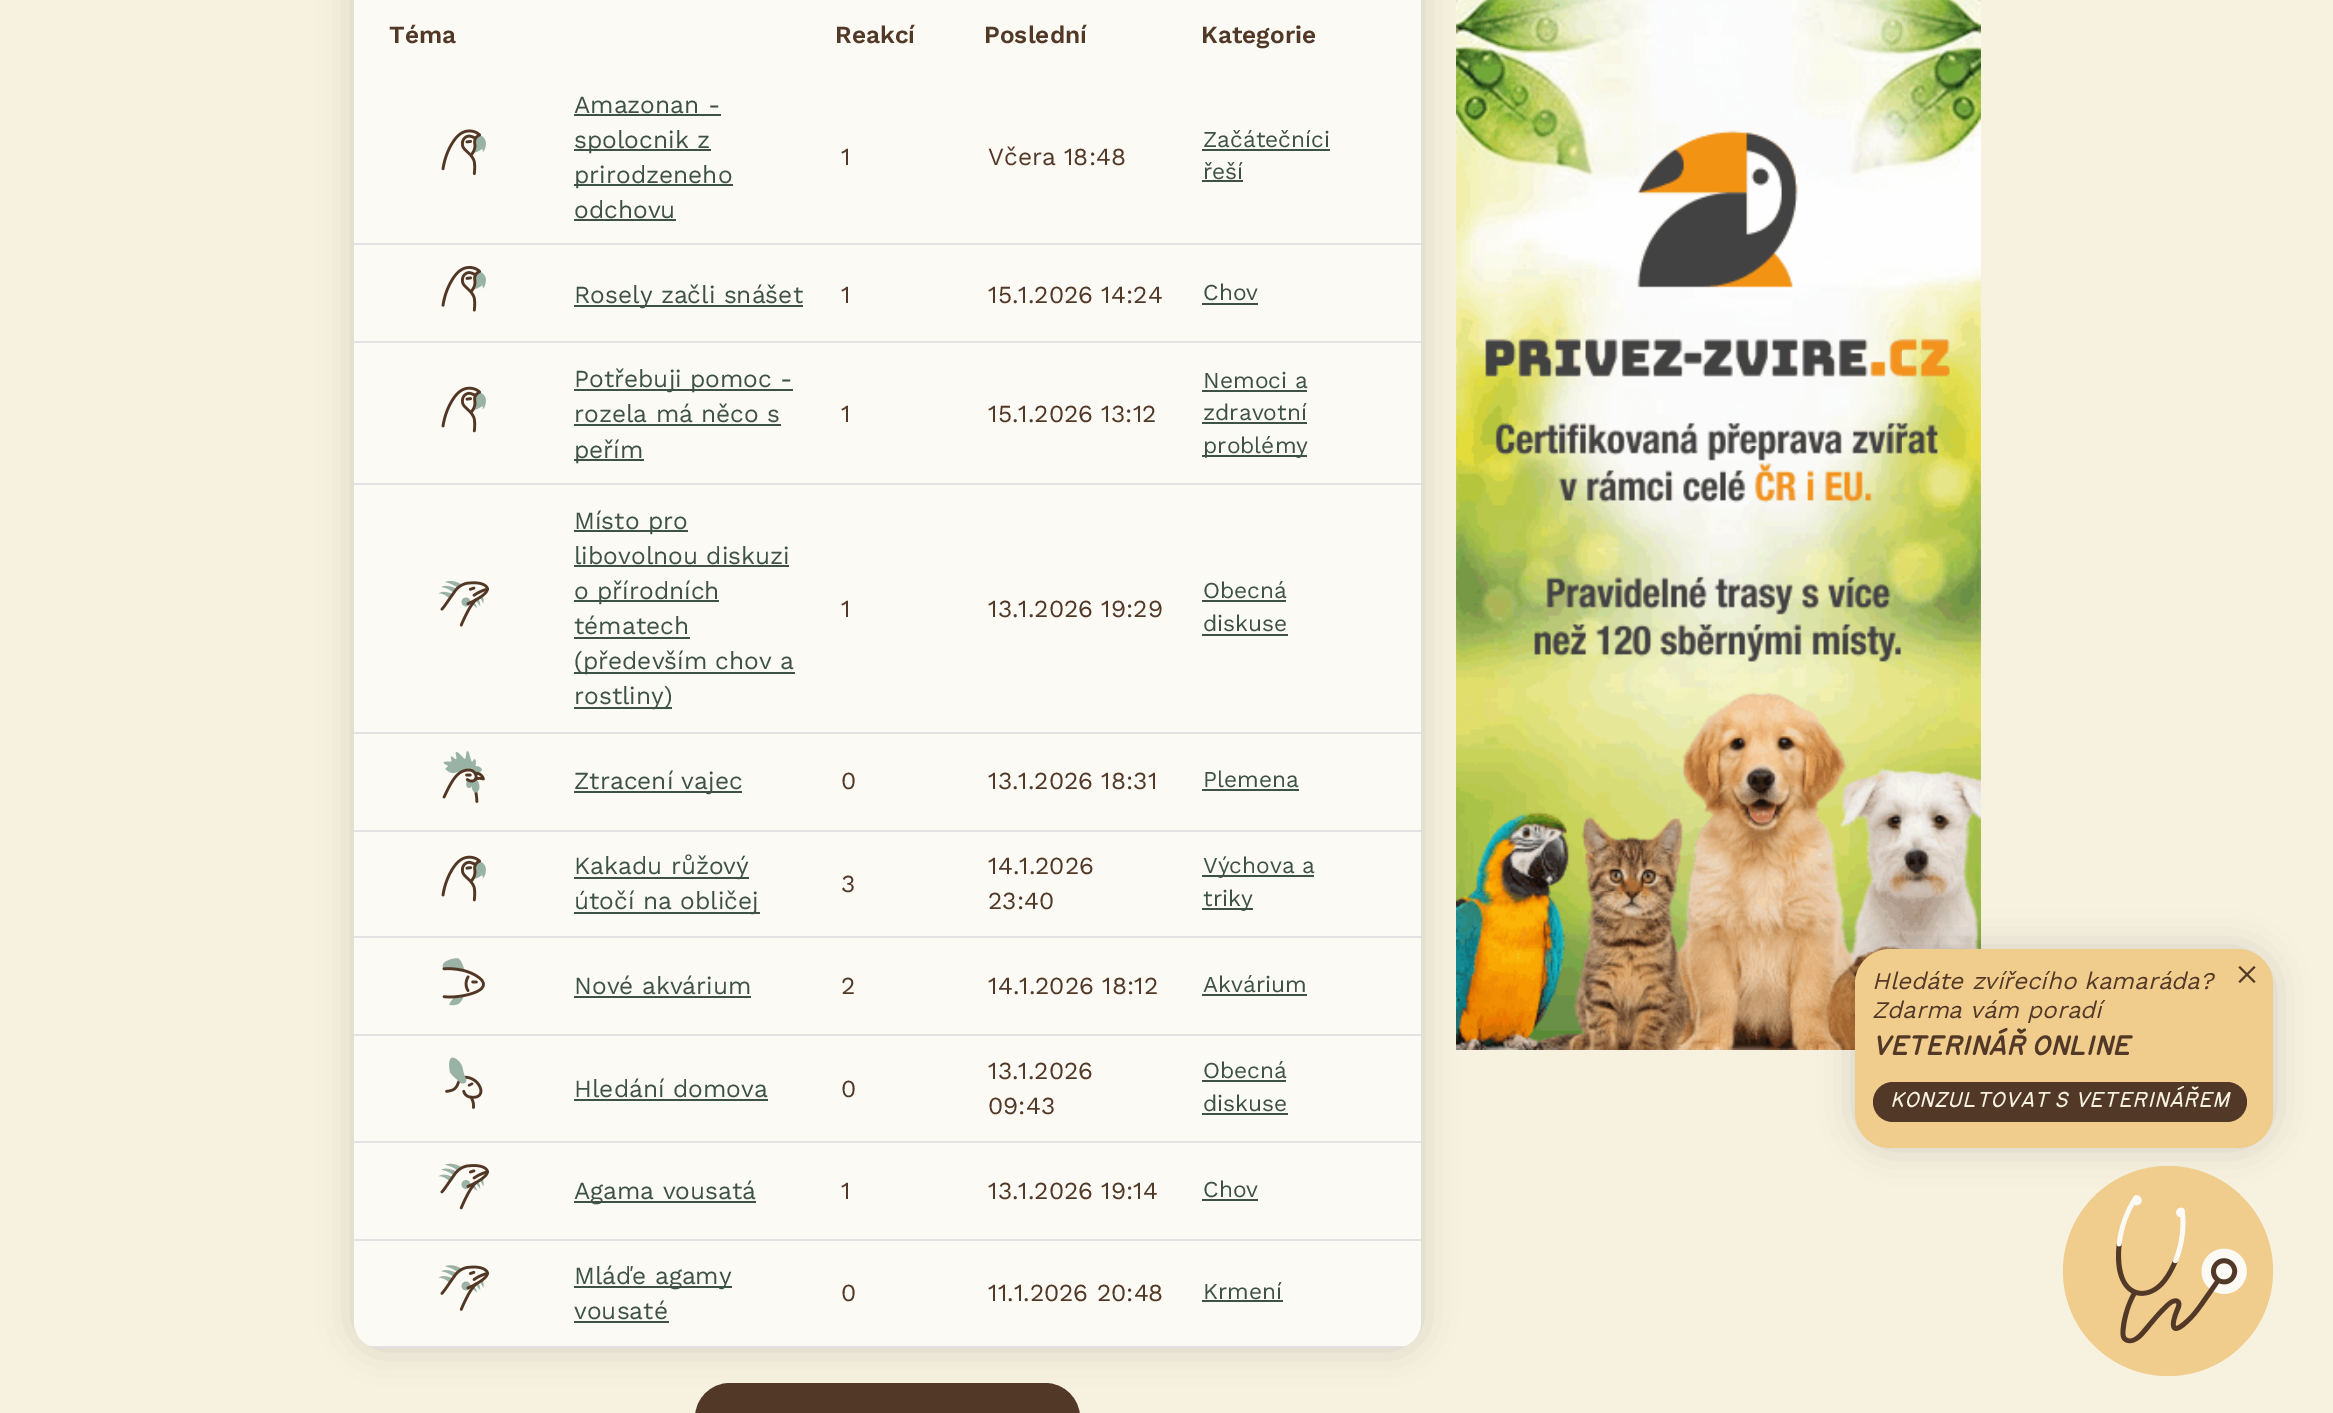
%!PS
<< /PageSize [2333 1413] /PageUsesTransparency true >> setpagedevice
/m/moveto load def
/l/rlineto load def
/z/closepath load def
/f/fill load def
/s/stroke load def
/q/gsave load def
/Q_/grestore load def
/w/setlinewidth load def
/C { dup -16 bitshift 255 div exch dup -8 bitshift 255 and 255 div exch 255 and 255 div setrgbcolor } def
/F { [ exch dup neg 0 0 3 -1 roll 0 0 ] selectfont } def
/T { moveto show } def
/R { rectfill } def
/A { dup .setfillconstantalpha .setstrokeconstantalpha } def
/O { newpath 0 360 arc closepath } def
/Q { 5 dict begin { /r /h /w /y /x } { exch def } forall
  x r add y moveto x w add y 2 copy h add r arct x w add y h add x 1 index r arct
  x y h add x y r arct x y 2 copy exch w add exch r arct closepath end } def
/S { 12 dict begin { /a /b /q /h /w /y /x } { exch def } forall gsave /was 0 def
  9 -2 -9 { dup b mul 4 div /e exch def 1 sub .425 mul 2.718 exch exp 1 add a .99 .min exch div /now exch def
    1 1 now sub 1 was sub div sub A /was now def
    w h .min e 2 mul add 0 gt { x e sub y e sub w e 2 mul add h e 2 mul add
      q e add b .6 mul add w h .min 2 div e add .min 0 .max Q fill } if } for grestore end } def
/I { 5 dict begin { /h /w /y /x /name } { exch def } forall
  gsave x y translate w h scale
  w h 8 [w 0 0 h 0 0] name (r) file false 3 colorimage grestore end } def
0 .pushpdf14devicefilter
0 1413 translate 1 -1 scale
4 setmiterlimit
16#F7F2E0 C
0 0 2333 1413 R
16#523826 C
697 1385 381 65 33 Q q f Q_
4 w
s
16#000000 C
354 -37 1067 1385 26 17.5 .15 S
16#FCFAF5 C
354 -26 1067 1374 26 Q f
/WorkSans-SemiBold 24.5 F
16#523826 C
(Téma) 389 43 T
(Reakcí) 835 43 T
(Poslední) 984 43 T
(Kategorie) 1201 43 T
16#E2E2E2 C
354 243 1067 2 R
(1.rgb) 441 129 45 46 I
/WorkSans-Regular 24.5 F
16#3D5245 C
(Amazonan -) 574 113 T
574 114 147 2 R
574 149 137 2 R
(spolocnik z) 574 148 T
574 184 159 2 R
(prirodzeneho) 574 183 T
(odchovu) 574 218 T
574 219 102 2 R
16#523826 C
(1) 841 165 T
(Včera 18:48) 988 165 T
/WorkSans-Regular 22.75 F
16#3D5245 C
(Začátečníci) 1203 147 T
1202 149 128 2 R
(řeší) 1203 179 T
1202 180 41 2 R
16#E2E2E2 C
354 341 1067 2 R
(2.rgb) 441 266 45 46 I
16#3D5245 C
574 305 229 2 R
/WorkSans-Regular 24.5 F
(Rosely začli snášet) 574 303 T
16#523826 C
(1) 841 303 T
(15.1.2026 14:24) 988 303 T
/WorkSans-Regular 22.75 F
16#3D5245 C
(Chov) 1203 300 T
1202 303 56 2 R
16#E2E2E2 C
354 483 1067 2 R
(3.rgb) 441 386 45 47 I
16#3D5245 C
574 389 219 2 R
/WorkSans-Regular 24.5 F
(Potřebuji pomoc -) 574 387 T
(rozela má něco s) 574 422 T
574 424 207 2 R
574 459 70 2 R
(peřím) 574 458 T
16#523826 C
(1) 841 422 T
(15.1.2026 13:12) 988 422 T
/WorkSans-Regular 22.75 F
16#3D5245 C
(Nemoci a) 1203 388 T
1202 390 105 2 R
(zdravotní) 1203 420 T
1202 422 105 2 R
1202 455 105 2 R
(problémy) 1203 453 T
16#E2E2E2 C
354 732 1067 2 R
(4.rgb) 438 580 51 47 I
16#3D5245 C
574 530 114 2 R
/WorkSans-Regular 24.5 F
(Místo pro) 574 529 T
(libovolnou diskuzi) 574 564 T
574 565 215 2 R
574 600 145 2 R
(o přírodních) 574 599 T
(tématech) 574 634 T
574 637 116 2 R
574 672 221 2 R
(\(především chov a) 574 669 T
574 707 98 2 R
(rostliny\)) 574 704 T
16#523826 C
(1) 841 617 T
(13.1.2026 19:29) 988 617 T
/WorkSans-Regular 22.75 F
16#3D5245 C
(Obecná) 1203 598 T
1202 600 84 2 R
(diskuse) 1203 631 T
1202 634 86 2 R
16#E2E2E2 C
354 830 1067 2 R
(5.rgb) 442 751 43 52 I
16#3D5245 C
574 791 168 2 R
/WorkSans-Regular 24.5 F
(Ztracení vajec) 574 789 T
16#523826 C
(0) 841 789 T
(13.1.2026 18:31) 988 789 T
/WorkSans-Regular 22.75 F
16#3D5245 C
(Plemena) 1203 787 T
1202 789 97 2 R
16#E2E2E2 C
354 936 1067 2 R
(3.rgb) 441 855 45 47 I
16#3D5245 C
574 877 175 2 R
/WorkSans-Regular 24.5 F
(Kakadu růžový) 574 874 T
574 912 186 2 R
(útočí na obličej) 574 909 T
16#523826 C
(3) 841 892 T
(14.1.2026) 988 874 T
(23:40) 988 909 T
16#3D5245 C
1202 875 112 2 R
/WorkSans-Regular 22.75 F
(Výchova a) 1203 873 T
1202 908 51 2 R
(triky) 1203 906 T
16#E2E2E2 C
354 1034 1067 2 R
(6.rgb) 442 958 43 48 I
/WorkSans-Regular 24.5 F
16#3D5245 C
(Nové akvárium) 574 994 T
574 996 177 2 R
16#523826 C
(2) 841 994 T
(14.1.2026 18:12) 988 994 T
/WorkSans-Regular 22.75 F
16#3D5245 C
(Akvárium) 1203 992 T
1202 994 105 2 R
16#E2E2E2 C
354 1141 1067 2 R
(7.rgb) 445 1057 38 52 I
/WorkSans-Regular 24.5 F
16#3D5245 C
(Hledání domova) 574 1097 T
574 1099 194 2 R
16#523826 C
(0) 841 1097 T
(13.1.2026) 988 1079 T
(09:43) 988 1114 T
/WorkSans-Regular 22.75 F
16#3D5245 C
(Obecná) 1203 1078 T
1202 1080 84 2 R
(diskuse) 1203 1111 T
1202 1113 86 2 R
16#E2E2E2 C
354 1239 1067 2 R
(8.rgb) 438 1163 51 47 I
16#3D5245 C
574 1201 182 2 R
/WorkSans-Regular 24.5 F
(Agama vousatá) 574 1199 T
16#523826 C
(1) 841 1199 T
(13.1.2026 19:14) 988 1199 T
/WorkSans-Regular 22.75 F
16#3D5245 C
(Chov) 1203 1197 T
1202 1199 56 2 R
q
354 -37 1067 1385 26 Q clip newpath
16#E2E2E2 C
370 1346 1035 2 R
Q_
(9.rgb) 438 1265 51 46 I
574 1286 158 2 R
/WorkSans-Regular 24.5 F
(Mláďe agamy) 574 1284 T
(vousaté) 574 1319 T
574 1321 95 2 R
16#523826 C
(0) 841 1301 T
(11.1.2026 20:48) 988 1301 T
/WorkSans-Regular 22.75 F
16#3D5245 C
(Krmení) 1203 1299 T
1202 1300 81 2 R
(10.rgb) 1456 0 525 1050 I
16#000000 C
1855 949 418 199 35 17.5 .15 S
16#F0CC8D C
1855 949 418 199 35 Q f
/WorkSans-Italic 24 F
16#523826 C
(Hledáte zvířecího kamaráda?) 1872 989 T
(Zdarma vám poradí) 1872 1018 T
/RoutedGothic-BoldItalic 26.25 F
(VETERINÁŘ ONLINE) 1872 1055 T
1873 1082 374 40 20 Q f
/RoutedGothic-Italic 21 F
16#F7F2E0 C
1890 1107 m .2 0 (KONZULTOVAT S VETERINÁŘEM) ashow
16#523826 C
2240 966 m 15.5 15.5 l -1.5 1.5 l -15.5 -15.5 l z f
2238.5 981.5 m 15.5 -15.5 l 1.5 1.5 l -15.5 15.5 l z f
16#F0CC8D C
2168 1271 105 O f
(11.rgb) 2116 1195 131 149 I
.poppdf14devicefilter showpage
